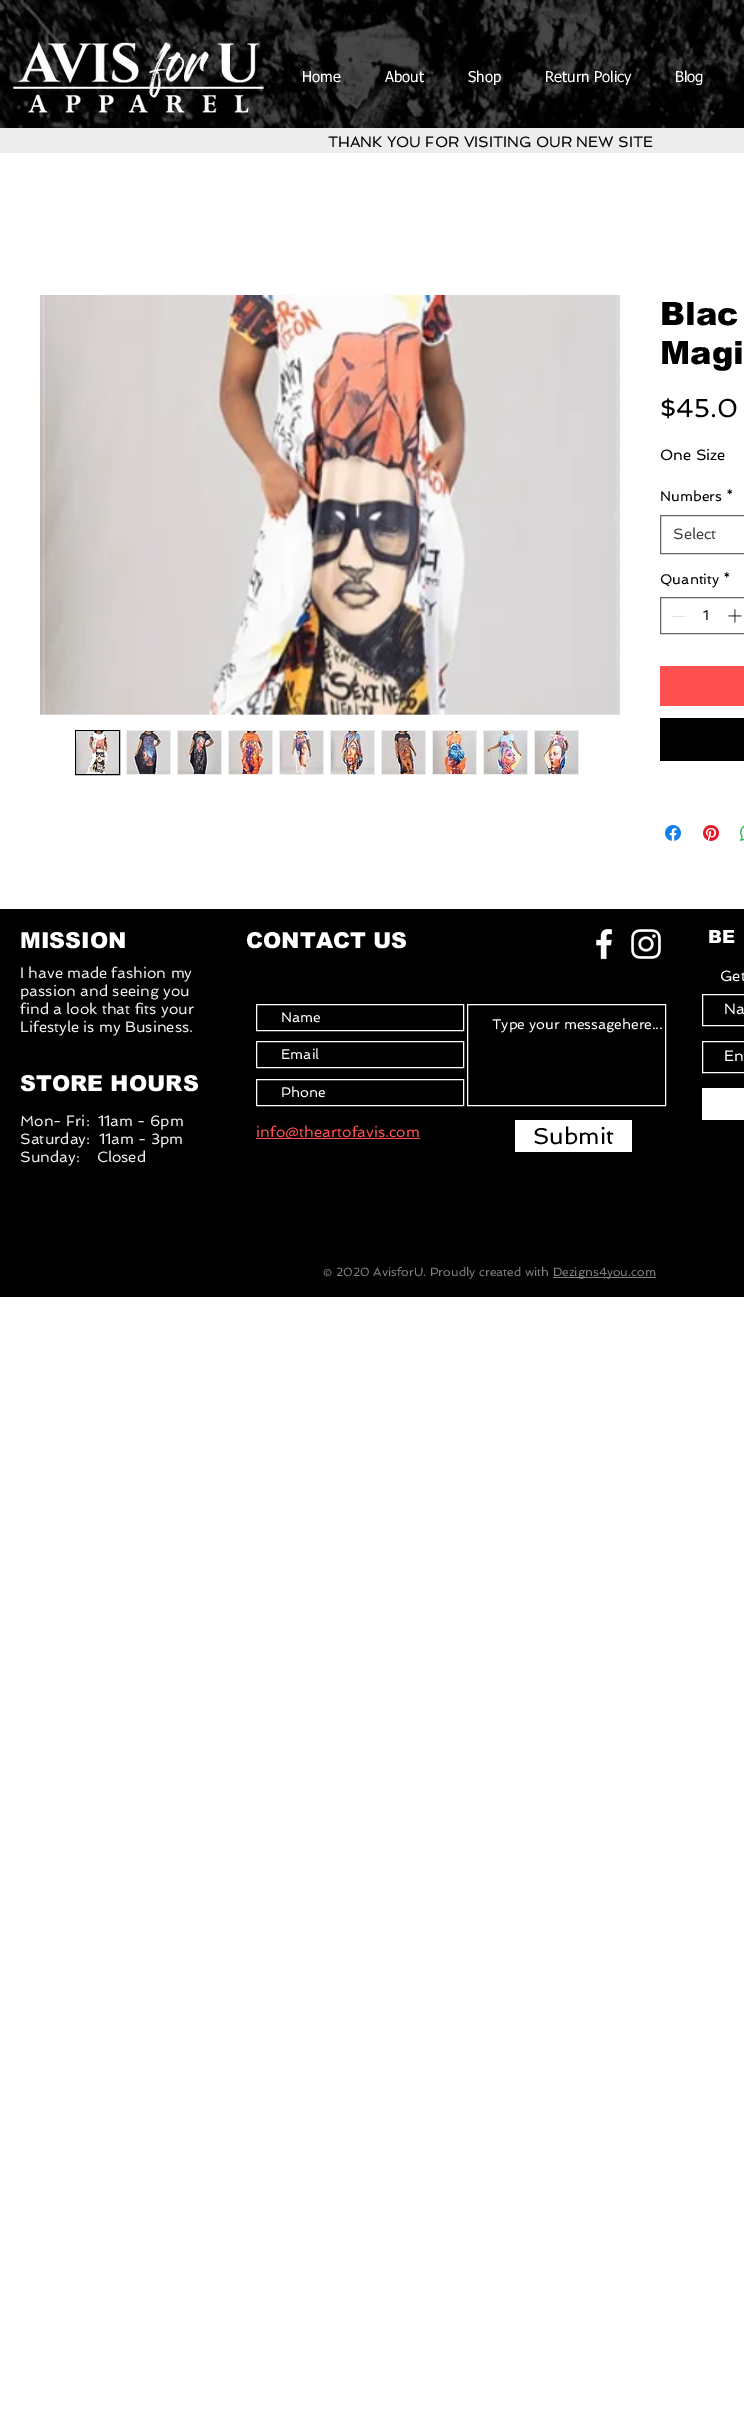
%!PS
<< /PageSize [744 2425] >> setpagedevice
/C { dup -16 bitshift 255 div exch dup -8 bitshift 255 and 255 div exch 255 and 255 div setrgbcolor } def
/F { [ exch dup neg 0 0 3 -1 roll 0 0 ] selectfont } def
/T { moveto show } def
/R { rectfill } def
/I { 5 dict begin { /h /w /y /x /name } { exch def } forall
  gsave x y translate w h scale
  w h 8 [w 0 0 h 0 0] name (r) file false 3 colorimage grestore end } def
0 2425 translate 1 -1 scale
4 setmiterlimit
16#FFFFFF C
0 0 744 2425 R
16#000000 C
0 0 744 128 R
(1.rgb) 0 0 744 128 I
(2.rgb) 12 42 252 71 I
/tahoma-Regular 15 F
16#FFFFFF C
(Home) 302 82 T
(About) 385 82 T
(Shop) 468 82 T
(Return Policy) 545 82 T
(Blog) 675 82 T
16#EDEDEE C
0 128 744 25 R
/Spinnaker-Regular 15 F
16#000000 C
(THANK YOU FOR VISITING OUR NEW SITE) 328 147 T
(3.rgb) 40 295 580 420 I
75.5 730.5 44 44 rectstroke
(4.rgb) 76 731 43 43 I
16#EDEDEE C
126 730 45 45 R
(5.rgb) 127 731 43 43 I
177 730 45 45 R
(6.rgb) 178 731 43 43 I
228 730 45 45 R
(7.rgb) 229 731 43 43 I
279 730 45 45 R
(8.rgb) 280 731 43 43 I
330 730 45 45 R
(9.rgb) 331 731 43 43 I
381 730 45 45 R
(10.rgb) 382 731 43 43 I
432 730 45 45 R
(11.rgb) 433 731 43 43 I
483 730 45 45 R
(12.rgb) 484 731 43 43 I
534 730 45 45 R
(13.rgb) 535 731 43 43 I
/arial-Black 32 F
16#000000 C
(Blac) 660 325 T
(Magi) 660 364 T
/Spinnaker-Regular 26 F
($45.0) 660 417 T
/Spinnaker-Regular 15 F
(One Size) 660 460 T
/Spinnaker-Regular 14 F
(Numbers *) 660 501 T
16#666666 C
660.5 515.5 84 38 rectstroke
/Spinnaker-Regular 15 F
16#444444 C
(Select) 673 539 T
/Spinnaker-Regular 14 F
16#000000 C
(Quantity *) 660 584 T
16#666666 C
660.5 597.5 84 36 rectstroke
16#E3E3E3 C
672 616 13 1 R
16#000000 C
(1) 703 620 T
(14.rgb) 728 609 14 14 I
16#FF4F4F C
660 666 84 40 R
16#000000 C
660 718 84 43 R
(15.rgb) 665 825 16 16 I
(16.rgb) 703 825 16 16 I
(17.rgb) 740 825 4 16 I
0 909 744 388 R
/arial-Black 22 F
16#FFFFFF C
(MISSION) 20 948 T
(CONTACT US) 246 948 T
(18.rgb) 596 928 17 32 I
(19.rgb) 631 929 30 30 I
/arial-Black 18 F
(BE) 708 943 T
/Spinnaker-Regular 15 F
16#EDEDEE C
(I have made fashion my) 20 978 T
(passion and seeing you) 20 996 T
(find a look that fits your) 20 1014 T
(Lifestyle is my Business.) 20 1032 T
16#FFFFFF C
256.5 1004.5 207 26 rectstroke
/Spinnaker-Regular 14 F
(Name) 281 1022 T
467.5 1004.5 198 101 rectstroke
(Type your messagehere...) 492 1029 T
256.5 1041.5 207 26 rectstroke
(Email) 281 1059 T
256.5 1079.5 207 26 rectstroke
(Phone) 281 1097 T
16#FF4F4F C
256 1138 164 1 R
/Spinnaker-Regular 15 F
(info@theartofavis.com) 256 1137 T
16#FFFFFF C
515 1120 117 32 R
/Spinnaker-Regular 23 F
16#000000 C
(Submit) 533 1144 T
/Spinnaker-Regular 15 F
16#FFFFFF C
(Get) 720 981 T
702.5 994.5 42 31 rectstroke
(Na) 724 1014 T
702.5 1041.5 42 31 rectstroke
(En) 724 1061 T
702 1088 42 32 R
/arial-Black 22 F
(STORE HOURS) 20 1091 T
/Spinnaker-Regular 15 F
16#EDEDEE C
(Mon- Fri:  11am - 6pm) 20 1126 T
(Saturday:  11am - 3pm) 20 1144 T
(Sunday:    Closed) 20 1162 T
/Spinnaker-Regular 12 F
16#808080 C
(© 2020 AvisforU. Proudly created with) 323 1276 T
553 1277 103 1 R
(Dezigns4you.com) 553 1276 T
showpage
